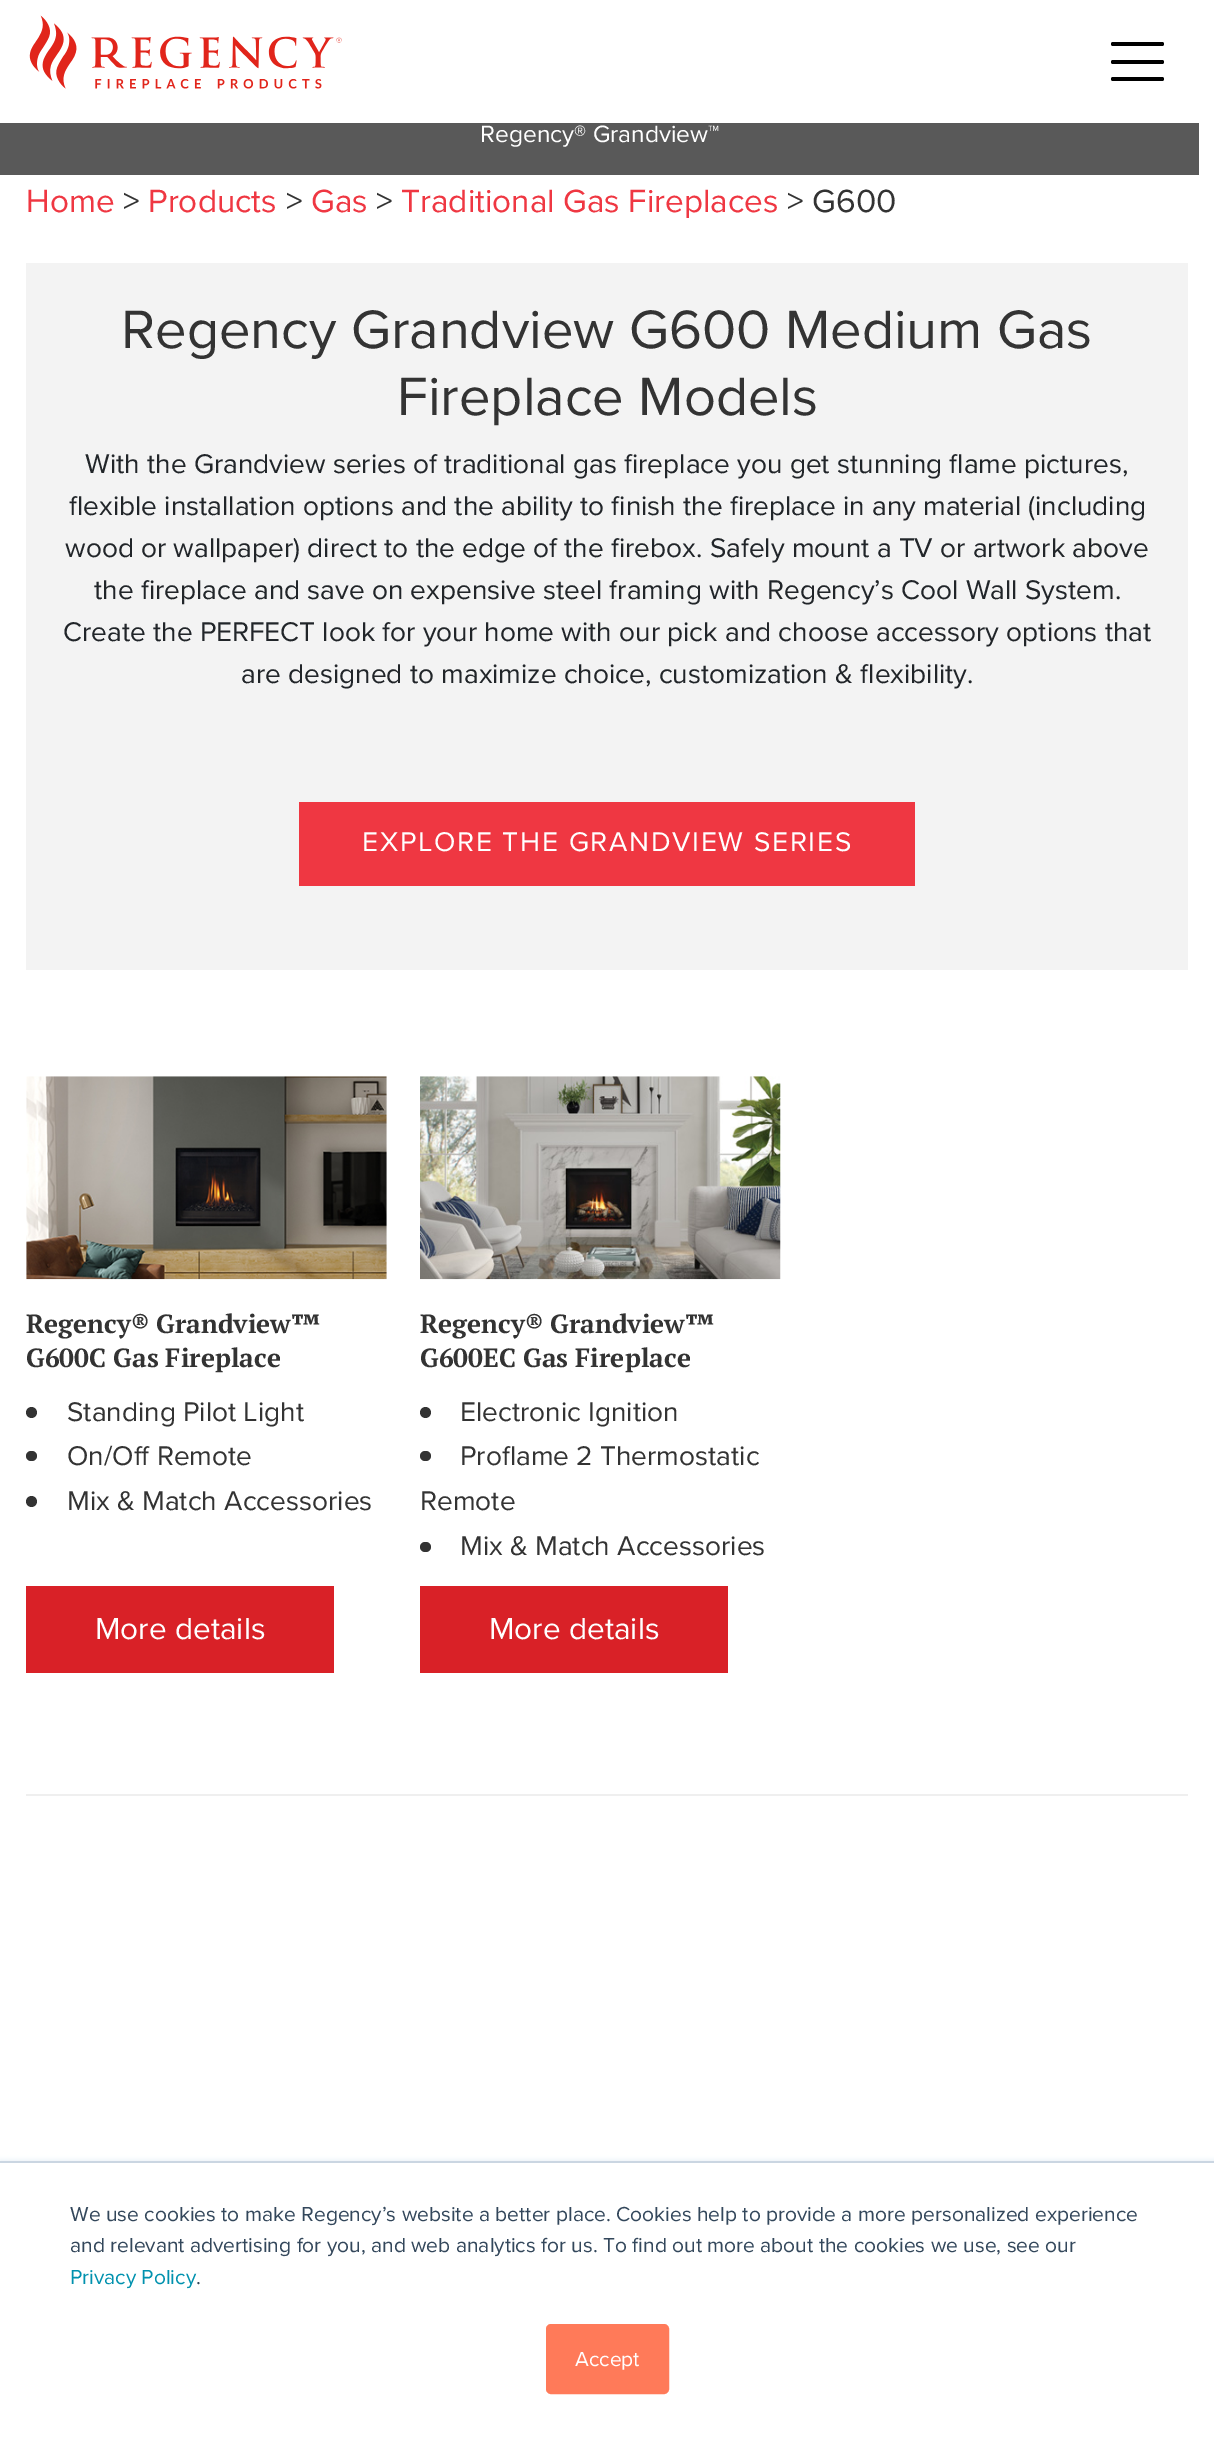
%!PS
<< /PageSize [1214 2439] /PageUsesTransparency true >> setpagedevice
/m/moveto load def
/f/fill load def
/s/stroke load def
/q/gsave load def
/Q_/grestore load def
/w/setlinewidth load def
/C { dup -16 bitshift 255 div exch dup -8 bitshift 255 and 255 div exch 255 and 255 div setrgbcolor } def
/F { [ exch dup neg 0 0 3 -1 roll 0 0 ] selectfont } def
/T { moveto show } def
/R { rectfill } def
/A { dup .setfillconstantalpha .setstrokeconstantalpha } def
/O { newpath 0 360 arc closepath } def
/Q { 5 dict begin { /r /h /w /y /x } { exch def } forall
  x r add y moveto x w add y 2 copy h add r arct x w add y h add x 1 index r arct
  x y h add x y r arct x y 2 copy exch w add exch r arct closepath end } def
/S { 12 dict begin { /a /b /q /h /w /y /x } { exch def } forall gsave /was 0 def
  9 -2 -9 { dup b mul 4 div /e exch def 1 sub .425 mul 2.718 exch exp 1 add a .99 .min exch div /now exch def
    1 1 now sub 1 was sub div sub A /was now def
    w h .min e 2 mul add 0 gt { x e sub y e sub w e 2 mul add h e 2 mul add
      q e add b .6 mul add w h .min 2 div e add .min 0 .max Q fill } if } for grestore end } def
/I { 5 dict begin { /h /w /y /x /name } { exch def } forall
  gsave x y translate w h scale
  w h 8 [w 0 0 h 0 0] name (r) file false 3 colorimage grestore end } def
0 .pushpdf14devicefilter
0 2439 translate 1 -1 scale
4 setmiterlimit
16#FFFFFF C
0 0 1214 2439 R
(1.rgb) 29 15 313 74 I
16#000000 C
1111 42 53 4 2 Q f
1111 60 53 4 2 Q f
1111 77 53 4 2 Q f
16#595959 C
0 123 1199 52 R
/ProximaNova-Regular 24.5 F
16#FFFFFF C
(Regency® Grandview™) 480 142 T
/ProximaNova-Regular 33.25 F
16#EF3742 C
(Home) 26 212 T
16#333333 C
(>) 123 212 T
16#EF3742 C
(Products) 148 212 T
16#333333 C
(>) 286 212 T
16#EF3742 C
(Gas) 311 212 T
16#333333 C
(>) 376 212 T
16#EF3742 C
(Traditional Gas Fireplaces) 401 212 T
16#333333 C
(> G600) 787 212 T
16#F3F3F3 C
26 263 1162 707 R
/ProximaNova-Regular 56 F
16#333333 C
(Regency Grandview G600 Medium Gas) 121 348 T
(Fireplace Models) 397 415 T
/ProximaNova-Regular 28 F
16#212529 C
(With the Grandview series of traditional gas fireplace you get stunning flame pictures,) 85 473 T
(flexible installation options and the ability to finish the fireplace in any material \(including) 69 515 T
(wood or wallpaper\) direct to the edge of the firebox. Safely mount a TV or artwork above) 65 557 T
(the fireplace and save on expensive steel framing with Regency’s Cool Wall System.) 94 599 T
(Create the PERFECT look for your home with our pick and choose accessory options that) 63 641 T
(are designed to maximize choice, customization & flexibility.) 241 683 T
16#EF3742 C
299 802 616 84 R
16#FFFFFF C
362 851 m 1.75 0 (EXPLORE THE GRANDVIEW SERIES) ashow
16#EFEFEF C
26 1794 1162 2 R
(2.rgb) 26 1076 361 204 I
/PTSerif-Bold 26.25 F
16#333333 C
(Regency® Grandview™) 26 1333 T
(G600C Gas Fireplace) 26 1367 T
31.5 1412.5 5.5 O f
/ProximaNova-Regular 28 F
(Standing Pilot Light) 67 1421 T
26 1451 11 10 5 Q f
(On/Off Remote) 67 1465 T
31.5 1501.5 5.5 O f
(Mix & Match Accessories) 67 1510 T
16#D92127 C
26 1586 308 87 R
/ProximaNova-Regular 31.5 F
16#FFFFFF C
(More details) 95 1639 T
(3.rgb) 420 1076 361 204 I
/PTSerif-Bold 26.25 F
16#333333 C
(Regency® Grandview™) 420 1333 T
(G600EC Gas Fireplace) 420 1367 T
425.5 1412.5 5.5 O f
/ProximaNova-Regular 28 F
(Electronic Ignition) 460 1421 T
420 1451 11 10 5 Q f
(Proflame 2 Thermostatic) 460 1465 T
(Remote) 420 1510 T
420 1542 11 10 5 Q f
(Mix & Match Accessories) 460 1555 T
16#D92127 C
420 1586 308 87 R
/ProximaNova-Regular 31.5 F
16#FFFFFF C
(More details) 489 1639 T
16#EAF0F6 C
0 2160 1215 278 0 2.5 1 S
16#FFFFFF C
0 2163 1214 276 R
16#CBD6E2 C
0 2161 1214 2 R
/ProximaNova-Regular 21 F
16#33475B C
(We use cookies to make Regency’s website a better place. Cookies help to provide a more personalized experience) 70 2221 T
(and relevant advertising for you, and web analytics for us. To find out more about the cookies we use, see our) 70 2252 T
16#0091AE C
(Privacy Policy) 70 2284 T
16#33475B C
(.) 196 2284 T
16#FF7A59 C
547 2325 121 68 4 Q q f Q_
2 w
s
16#FFFFFF C
(Accept) 575 2366 T
.poppdf14devicefilter showpage
